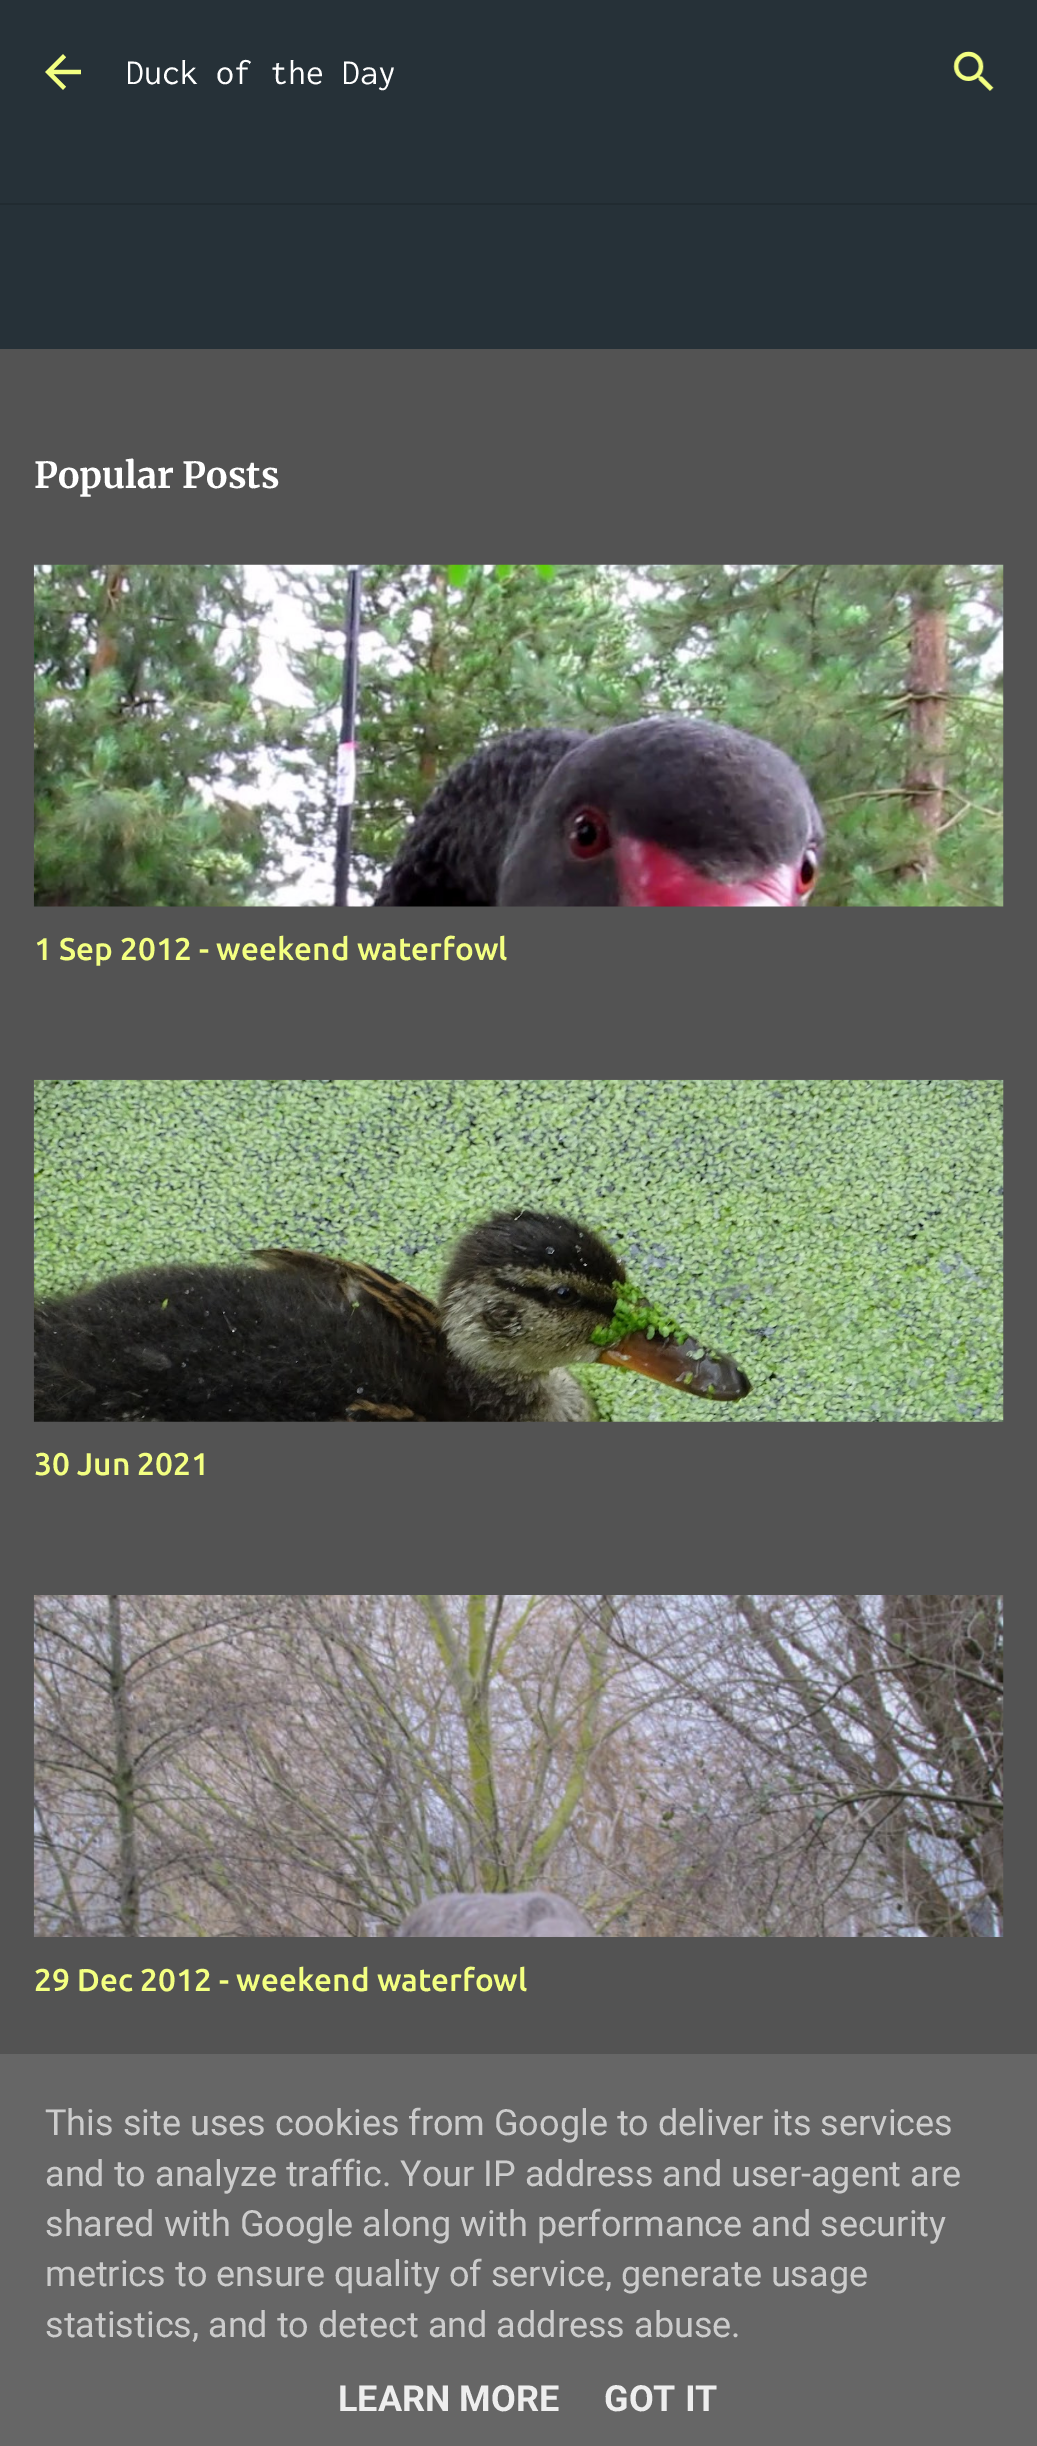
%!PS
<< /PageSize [1037 2446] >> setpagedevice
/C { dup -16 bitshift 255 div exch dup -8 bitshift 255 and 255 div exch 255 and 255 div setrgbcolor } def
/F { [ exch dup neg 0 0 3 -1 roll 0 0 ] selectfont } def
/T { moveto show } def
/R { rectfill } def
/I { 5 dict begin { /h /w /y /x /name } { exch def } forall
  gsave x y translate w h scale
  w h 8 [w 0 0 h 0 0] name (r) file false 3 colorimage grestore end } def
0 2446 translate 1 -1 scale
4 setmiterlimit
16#535353 C
0 0 1037 2446 R
16#263138 C
0 0 1037 203 R
(1.rgb) 45 54 36 36 I
/Inconsolata-Regular 36 F
16#FFFFFF C
(Duck of the Day) 126 84 T
(2.rgb) 953 51 41 40 I
16#263138 C
0 205 1037 144 R
16#212B31 C
0 203 1037 2 R
/Merriweather-Bold 36 F
16#FFFFFF C
(Popular Posts) 34 488 T
(3.rgb) 33 564 971 343 I
/Ubuntu-Medium 31.5 F
16#F3FF81 C
(1 Sep 2012 - weekend waterfowl) 34 960 T
(4.rgb) 33 1079 971 343 I
(30 Jun 2021) 34 1475 T
(5.rgb) 33 1595 971 342 I
(29 Dec 2012 - weekend waterfowl) 34 1991 T
16#666666 C
0 2054 1037 392 R
/Roboto-Regular 36 F
16#CCCCCC C
(This site uses cookies from Google to deliver its services) 45 2135 T
(and to analyze traffic. Your IP address and user-agent are) 45 2186 T
(shared with Google along with performance and security) 45 2236 T
(metrics to ensure quality of service, generate usage) 45 2286 T
(statistics, and to detect and address abuse.) 45 2337 T
/Roboto-Bold 36 F
16#EEEEEE C
(LEARN MORE) 338 2411 T
(GOT IT) 604 2411 T
showpage
